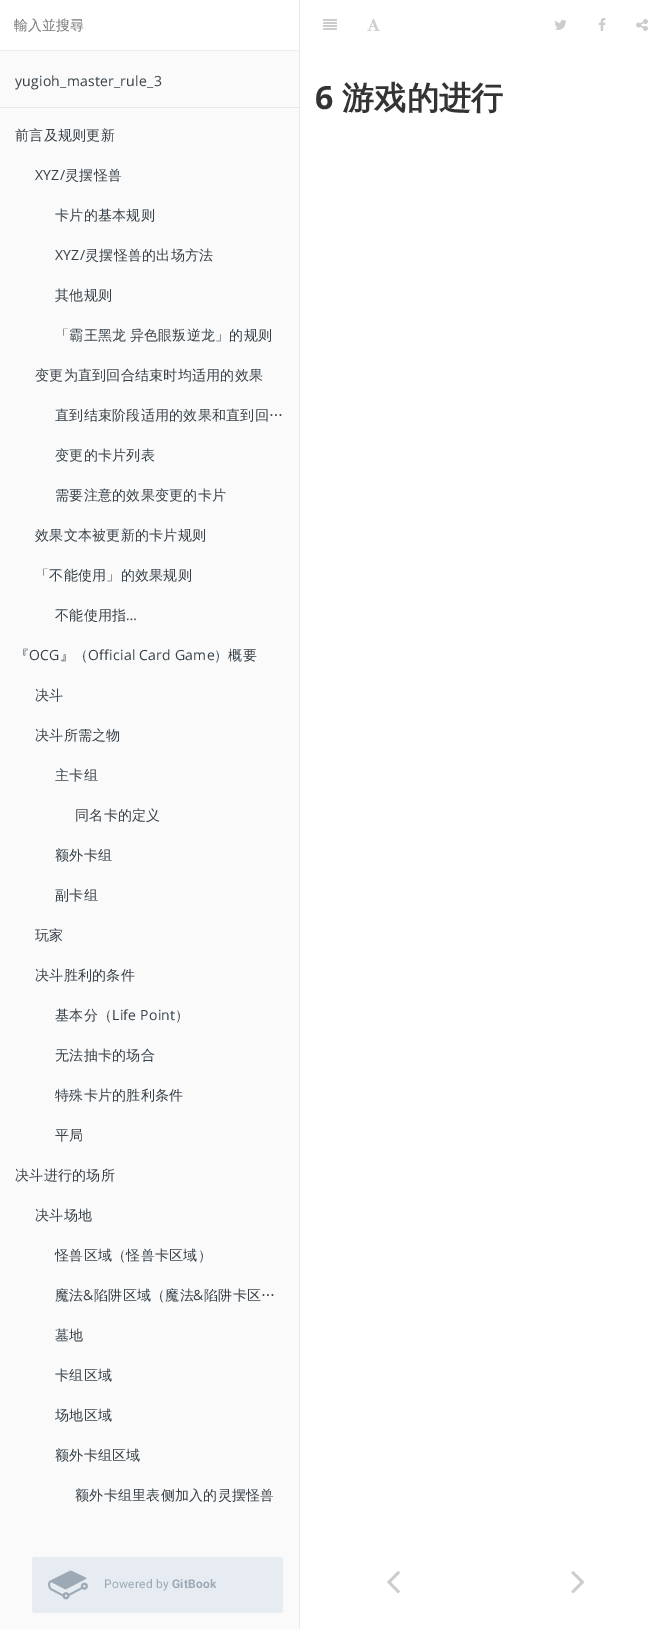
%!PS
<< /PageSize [671 1629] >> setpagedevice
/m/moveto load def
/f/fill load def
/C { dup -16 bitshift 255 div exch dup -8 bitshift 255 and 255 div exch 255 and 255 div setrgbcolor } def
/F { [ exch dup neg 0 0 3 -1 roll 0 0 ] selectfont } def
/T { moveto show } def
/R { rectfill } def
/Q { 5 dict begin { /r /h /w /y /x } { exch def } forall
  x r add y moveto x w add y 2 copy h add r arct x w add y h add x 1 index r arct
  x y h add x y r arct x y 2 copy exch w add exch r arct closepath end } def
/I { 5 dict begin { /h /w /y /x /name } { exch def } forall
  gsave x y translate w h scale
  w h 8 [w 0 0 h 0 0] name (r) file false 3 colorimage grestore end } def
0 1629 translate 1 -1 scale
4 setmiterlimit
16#FFFFFF C
0 0 671 1629 R
16#FAFAFA C
0 51 299 1578 R
16#E9E9E9 C
299 0 1 1629 R
16#EDEDED C
0 50 299 1 R
/WenQuanYiZenHei-Medium 14 F
16#757575 C
(輸入並搜尋) 14 30 T
/OpenSans-Regular 14 F
16#364149 C
15 86 m .25 0 (yugioh_master_rule_3) ashow
16#E9E9E9 C
0 107 299 1 R
/WenQuanYiZenHei-Medium 14 F
16#364149 C
15 140 m .25 0 (前言及规则更新) ashow
/OpenSans-Regular 14 F
35 180 m .25 0 (XYZ/) ashow
/WenQuanYiZenHei-Medium 14 F
65 180 m .25 0 (灵摆怪兽) ashow
55 220 m .25 0 (卡片的基本规则) ashow
/OpenSans-Regular 14 F
55 260 m .25 0 (XYZ/) ashow
/WenQuanYiZenHei-Medium 14 F
85 260 m .25 0 (灵摆怪兽的出场方法) ashow
55 300 m .25 0 (其他规则) ashow
55 340 m -1 0 32 .25 0 (「霸王黑龙 异色眼叛逆龙」的规则) awidthshow
35 380 m .25 0 (变更为直到回合结束时均适用的效果) ashow
55 420 m .25 0 (直到结束阶段适用的效果和直到回…) ashow
55 460 m .25 0 (变更的卡片列表) ashow
55 500 m .25 0 (需要注意的效果变更的卡片) ashow
35 540 m .25 0 (效果文本被更新的卡片规则) ashow
35 580 m .25 0 (「不能使用」的效果规则) ashow
55 620 m .25 0 (不能使用指) ashow
/OpenSans-Regular 14 F
126 620 m .25 0 (…) ashow
/WenQuanYiZenHei-Medium 14 F
15 660 m .25 0 (『) ashow
/OpenSans-Regular 14 F
29 660 m .25 0 (OCG) ashow
/WenQuanYiZenHei-Medium 14 F
60 660 m .25 0 (』（) ashow
/OpenSans-Regular 14 F
88 660 m .25 0 (Official Card Game) ashow
/WenQuanYiZenHei-Medium 14 F
214 660 m .25 0 (）概要) ashow
35 700 m .25 0 (决斗) ashow
35 740 m .25 0 (决斗所需之物) ashow
55 780 m .25 0 (主卡组) ashow
75 820 m .25 0 (同名卡的定义) ashow
55 860 m .25 0 (额外卡组) ashow
55 900 m .25 0 (副卡组) ashow
35 940 m .25 0 (玩家) ashow
35 980 m .25 0 (决斗胜利的条件) ashow
55 1020 m .25 0 (基本分（) ashow
/OpenSans-Regular 14 F
112 1020 m .25 0 (Life Point) ashow
/WenQuanYiZenHei-Medium 14 F
175 1020 m .25 0 (）) ashow
55 1060 m .25 0 (无法抽卡的场合) ashow
55 1100 m .25 0 (特殊卡片的胜利条件) ashow
55 1140 m .25 0 (平局) ashow
15 1180 m .25 0 (决斗进行的场所) ashow
35 1220 m .25 0 (决斗场地) ashow
55 1260 m .25 0 (怪兽区域（怪兽卡区域）) ashow
55 1300 m .25 0 (魔法) ashow
/OpenSans-Regular 14 F
83 1300 m .25 0 (&) ashow
/WenQuanYiZenHei-Medium 14 F
94 1300 m .25 0 (陷阱区域（魔法) ashow
/OpenSans-Regular 14 F
193 1300 m .25 0 (&) ashow
/WenQuanYiZenHei-Medium 14 F
204 1300 m .25 0 (陷阱卡区…) ashow
55 1340 m .25 0 (墓地) ashow
55 1380 m .25 0 (卡组区域) ashow
55 1420 m .25 0 (场地区域) ashow
55 1460 m .25 0 (额外卡组区域) ashow
75 1500 m .25 0 (额外卡组里表侧加入的灵摆怪兽) ashow
16#E6ECF1 C
32 1557 251 56 3 Q f
(1.rgb) 48 1570 40 30 I
/Roboto-Regular 12 F
16#9DAAB6 C
104 1588 m .25 0 (Powered by) ashow
/Roboto-Bold 12 F
172 1588 m .25 0 (GitBook) ashow
(2.rgb) 323 19 14 11 I
(3.rgb) 367 19 13 12 I
(4.rgb) 554 20 13 10 I
(5.rgb) 598 18 8 13 I
(6.rgb) 636 19 12 12 I
/OpenSans-Bold 32 F
16#333333 C
315 109 m .25 0 (6) ashow
/WenQuanYiZenHei-Bold 32 F
342 109 m .25 0 (游戏的进行) ashow
(7.rgb) 387 1571 13 23 I
(8.rgb) 571 1571 14 23 I
showpage
